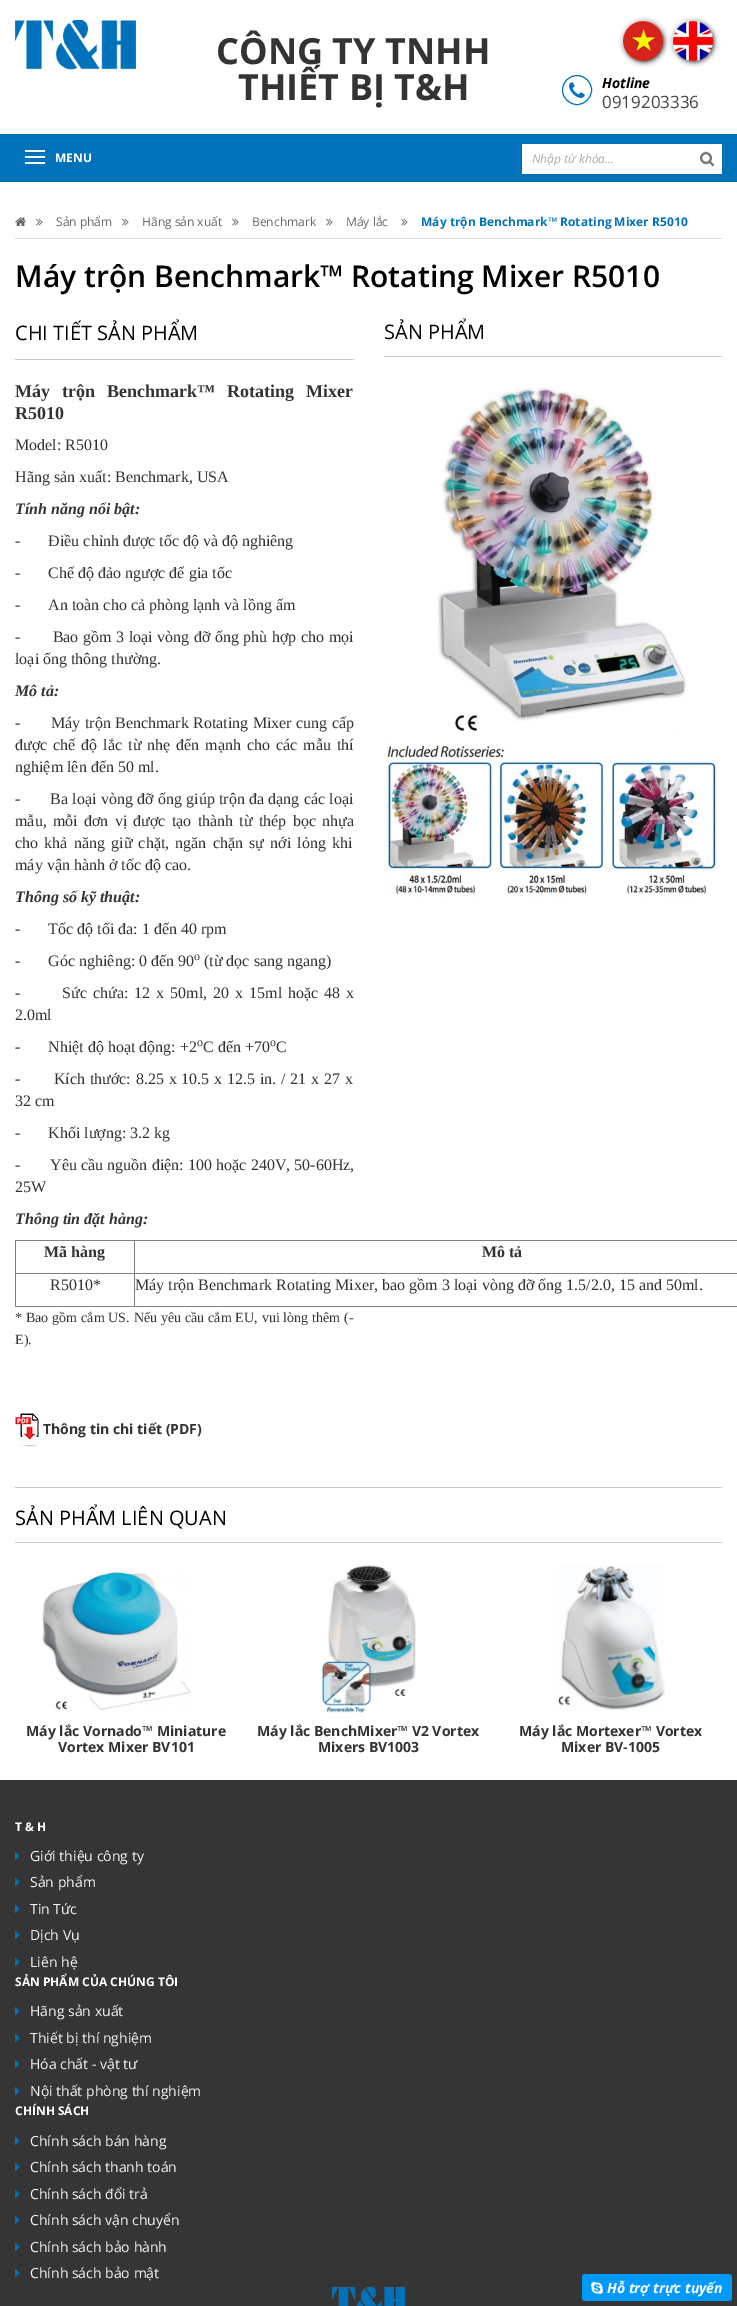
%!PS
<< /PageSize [737 2306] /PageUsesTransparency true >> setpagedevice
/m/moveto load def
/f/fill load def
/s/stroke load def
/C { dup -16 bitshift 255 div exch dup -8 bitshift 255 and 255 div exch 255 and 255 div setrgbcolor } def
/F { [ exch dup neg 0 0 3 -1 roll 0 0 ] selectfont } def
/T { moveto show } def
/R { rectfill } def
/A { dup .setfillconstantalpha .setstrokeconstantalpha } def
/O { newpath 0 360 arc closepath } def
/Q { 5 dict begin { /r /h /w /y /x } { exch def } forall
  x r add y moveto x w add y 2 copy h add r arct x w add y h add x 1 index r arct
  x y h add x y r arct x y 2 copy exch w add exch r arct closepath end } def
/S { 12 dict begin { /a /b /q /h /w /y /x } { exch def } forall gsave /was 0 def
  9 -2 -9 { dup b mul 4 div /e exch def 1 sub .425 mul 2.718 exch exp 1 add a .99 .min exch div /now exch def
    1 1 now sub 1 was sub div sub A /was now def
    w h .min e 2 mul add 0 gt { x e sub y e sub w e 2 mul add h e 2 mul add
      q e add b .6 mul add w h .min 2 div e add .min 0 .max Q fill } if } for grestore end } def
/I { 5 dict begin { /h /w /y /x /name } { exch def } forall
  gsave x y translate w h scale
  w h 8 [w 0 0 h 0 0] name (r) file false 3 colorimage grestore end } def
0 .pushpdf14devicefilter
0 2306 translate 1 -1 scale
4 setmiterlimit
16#FFFFFF C
0 0 737 2306 R
(1.rgb) 15 20 121 50 I
/OpenSans-Bold 36 F
16#333333 C
(CÔNG TY TNHH) 216 64 T
(THIẾT BỊ T&H) 238 100 T
624 22 40 40 20 2.5 1 S
16#DDDDDD C
642 40 19.5 O s
(2.rgb) 623 21 40 40 I
16#333333 C
674 22 40 40 20 2.5 1 S
16#DDDDDD C
692 40 19.5 O s
(3.rgb) 673 21 40 40 I
16#0072BB C
577 90 14.5 O s
(4.rgb) 569 82 16 16 I
/OpenSans-BoldItalic 14 F
16#000000 C
(Hotline) 602 88 T
/OpenSans-Regular 17 F
16#444444 C
(0919203336) 602 108 T
16#0072BB C
0 134 737 48 R
16#FFFFFF C
25 150 20 2 R
25 156 20 2 R
25 162 20 2 R
/OpenSans-Bold 12 F
(MENU) 55 162 T
522 144 200 30 R
/OpenSans-Italic 12 F
16#AAAAAA C
(Nhập từ khóa...) 532 163 T
(5.rgb) 700 151 15 16 I
16#DDDDDD C
15 238 707 1 R
(6.rgb) 15 217 11 9 I
(7.rgb) 36 218 7 8 I
/OpenSans-Regular 12 F
16#666666 C
(Sản phẩm) 56 226 T
(7.rgb) 122 218 7 8 I
(Hãng sản xuất) 142 226 T
(7.rgb) 232 218 7 8 I
(Benchmark) 252 226 T
(7.rgb) 326 218 7 8 I
(Máy lắc) 346 226 T
(7.rgb) 401 218 7 8 I
/OpenSans-Bold 12 F
16#0072BB C
(Máy trộn Benchmark™ Rotating Mixer R5010) 421 226 T
/OpenSans-SemiBold 30 F
16#000000 C
(Máy trộn Benchmark™ Rotating Mixer R5010) 15 287 T
16#CCCCCC C
384 356 338 1 R
/OpenSans-Regular 20 F
16#000000 C
(SẢN PHẨM) 384 339 T
(8.rgb) 384 387 335 514 I
16#CCCCCC C
15 359 339 1 R
16#000000 C
(CHI TIẾT SẢN PHẨM) 15 340 T
/LiberationSerif-Bold 18 F
16#333333 C
15 397 m 7.5 0 32 (Máy trộn Benchmark™ Rotating Mixer) widthshow
(R5010) 15 419 T
/LiberationSerif-Regular 16 F
(Model: R5010) 15 450 T
(Hãng sản xuất: Benchmark, USA) 15 482 T
/LiberationSerif-BoldItalic 16 F
(Tính năng nổi bật:) 15 514 T
/LiberationSerif-Regular 16 F
(-       Điều chỉnh được tốc độ và độ nghiêng) 15 546 T
(-       Chế độ đảo ngược để gia tốc) 15 578 T
(-       An toàn cho cả phòng lạnh và lồng ấm) 15 610 T
15 642 m .6 0 32 (-       Bao gồm 3 loại vòng đỡ ống phù hợp cho mọi) widthshow
(loại ống thông thường.) 15 664 T
/LiberationSerif-BoldItalic 16 F
(Mô tả:) 15 696 T
/LiberationSerif-Regular 16 F
15 728 m .4 0 32 (-       Máy trộn Benchmark Rotating Mixer cung cấp) widthshow
15 750 m 2 0 32 (được chế độ lắc từ nhẹ đến mạnh cho các mẫu thí) widthshow
(nghiệm lên đến 50 ml.) 15 772 T
15 804 m .3 0 32 (-       Ba loại vòng đỡ ống giúp trộn đa dạng các loại) widthshow
15 826 m 2.25 0 32 (mẫu, mỗi đơn vị được tạo thành từ thép bọc nhựa) widthshow
15 848 m 2.25 0 32 (cho khả năng giữ chặt, ngăn chặn sự nới lỏng khi) widthshow
(máy vận hành ở tốc độ cao.) 15 870 T
/LiberationSerif-BoldItalic 16 F
(Thông số kỹ thuật:) 15 902 T
/LiberationSerif-Regular 16 F
(-       Tốc độ tối đa: 1 đến 40 rpm) 15 934 T
(-       Góc nghiêng: 0 đến 90) 15 966 T
/LiberationSerif-Regular 12 F
(o) 194 960 T
/LiberationSerif-Regular 16 F
(\(từ dọc sang ngang\)) 204 966 T
15 998 m 2 0 32 (-       Sức chứa: 12 x 50ml, 20 x 15ml hoặc 48 x) widthshow
(2.0ml) 15 1020 T
(-       Nhiệt độ hoạt động: +2) 15 1052 T
/LiberationSerif-Regular 12 F
(o) 197 1046 T
/LiberationSerif-Regular 16 F
(C đến +70) 203 1052 T
/LiberationSerif-Regular 12 F
(o) 270 1046 T
/LiberationSerif-Regular 16 F
(C) 276 1052 T
15 1084 m .8 0 32 (-       Kích thước: 8.25 x 10.5 x 12.5 in. / 21 x 27 x) widthshow
(32 cm) 15 1106 T
(-       Khối lượng: 3.2 kg) 15 1138 T
15 1170 m .25 0 32 (-       Yêu cầu nguồn điện: 100 hoặc 240V, 50-60Hz,) widthshow
(25W) 15 1192 T
/LiberationSerif-BoldItalic 16 F
(Thông tin đặt hàng:) 15 1224 T
16#808080 C
15 1240 722 1 R
15 1306 722 1 R
15 1240 1 67 R
/LiberationSerif-Bold 16 F
16#333333 C
(Mã hàng) 44 1257 T
16#808080 C
134 1273 603 1 R
134 1273 1 34 R
15 1273 120 1 R
134 1240 1 34 R
16#333333 C
(Mô tả) 482 1257 T
/LiberationSerif-Regular 16 F
(R5010*) 50 1290 T
(Máy trộn Benchmark Rotating Mixer, bao gồm 3 loại vòng đỡ ống 1.5/2.0, 15 and 50ml.) 135 1290 T
/LiberationSerif-Regular 14 F
15 1322 m .4 0 32 (* Bao gồm cắm US. Nếu yêu cầu cắm EU, vui lòng thêm \(-) widthshow
(E\).) 15 1344 T
(9.rgb) 15 1413 24 34 I
/OpenSans-Bold 14 F
(Thông tin chi tiết \(PDF\)) 43 1434 T
16#CCCCCC C
15 1487 707 1 R
15 1542 707 1 R
/OpenSans-Regular 20 F
16#000000 C
(SẢN PHẨM LIÊN QUAN) 15 1525 T
(10.rgb) 42 1572 149 138 I
/OpenSans-Bold 14 F
16#333333 C
(Máy lắc Vornado™ Miniature) 26 1736 T
(Vortex Mixer BV101) 58 1752 T
(11.rgb) 321 1565 95 148 I
(Máy lắc BenchMixer™ V2 Vortex) 257 1736 T
(Mixers BV1003) 318 1752 T
(12.rgb) 558 1565 107 146 I
(Máy lắc Mortexer™ Vortex) 519 1736 T
(Mixer BV-1005) 561 1752 T
16#353535 C
0 1780 737 526 R
/OpenSans-Bold 12 F
16#FFFFFF C
(T & H) 15 1831 T
(13.rgb) 15 1852 5 8 I
/OpenSans-Regular 14 F
16#F3F3F3 C
(Giới thiệu công ty) 30 1861 T
(13.rgb) 15 1878 5 8 I
(Sản phẩm) 30 1887 T
(13.rgb) 15 1905 5 8 I
(Tin Tức) 30 1914 T
(13.rgb) 15 1931 5 8 I
(Dịch Vụ) 30 1940 T
(13.rgb) 15 1958 5 8 I
(Liên hệ) 30 1967 T
/OpenSans-Bold 12 F
16#FFFFFF C
(SẢN PHẨM CỦA CHÚNG TÔI) 15 1986 T
(13.rgb) 15 2007 5 8 I
/OpenSans-Regular 14 F
16#F3F3F3 C
(Hãng sản xuất) 30 2016 T
(13.rgb) 15 2034 5 8 I
(Thiết bị thí nghiệm) 30 2043 T
(13.rgb) 15 2060 5 8 I
(Hóa chất - vật tư) 30 2069 T
(13.rgb) 15 2087 5 8 I
(Nội thất phòng thí nghiệm) 30 2096 T
/OpenSans-Bold 12 F
16#FFFFFF C
(CHÍNH SÁCH) 15 2115 T
(13.rgb) 15 2137 5 8 I
/OpenSans-Regular 14 F
16#F3F3F3 C
(Chính sách bán hàng) 30 2146 T
(13.rgb) 15 2163 5 8 I
(Chính sách thanh toán) 30 2172 T
(13.rgb) 15 2190 5 8 I
(Chính sách đổi trả) 30 2199 T
(13.rgb) 15 2216 5 8 I
(Chính sách vận chuyển) 30 2225 T
(13.rgb) 15 2243 5 8 I
(Chính sách bảo hành) 30 2252 T
(13.rgb) 15 2269 5 8 I
(Chính sách bảo mật) 30 2278 T
(14.rgb) 332 2287 73 19 I
16#0099FF C
582 2274 150 27 3 Q f
(15.rgb) 591 2282 12 12 I
/OpenSans-BoldItalic 14 F
16#FFFFFF C
(Hỗ trợ trực tuyến) 607 2293 T
.poppdf14devicefilter showpage
